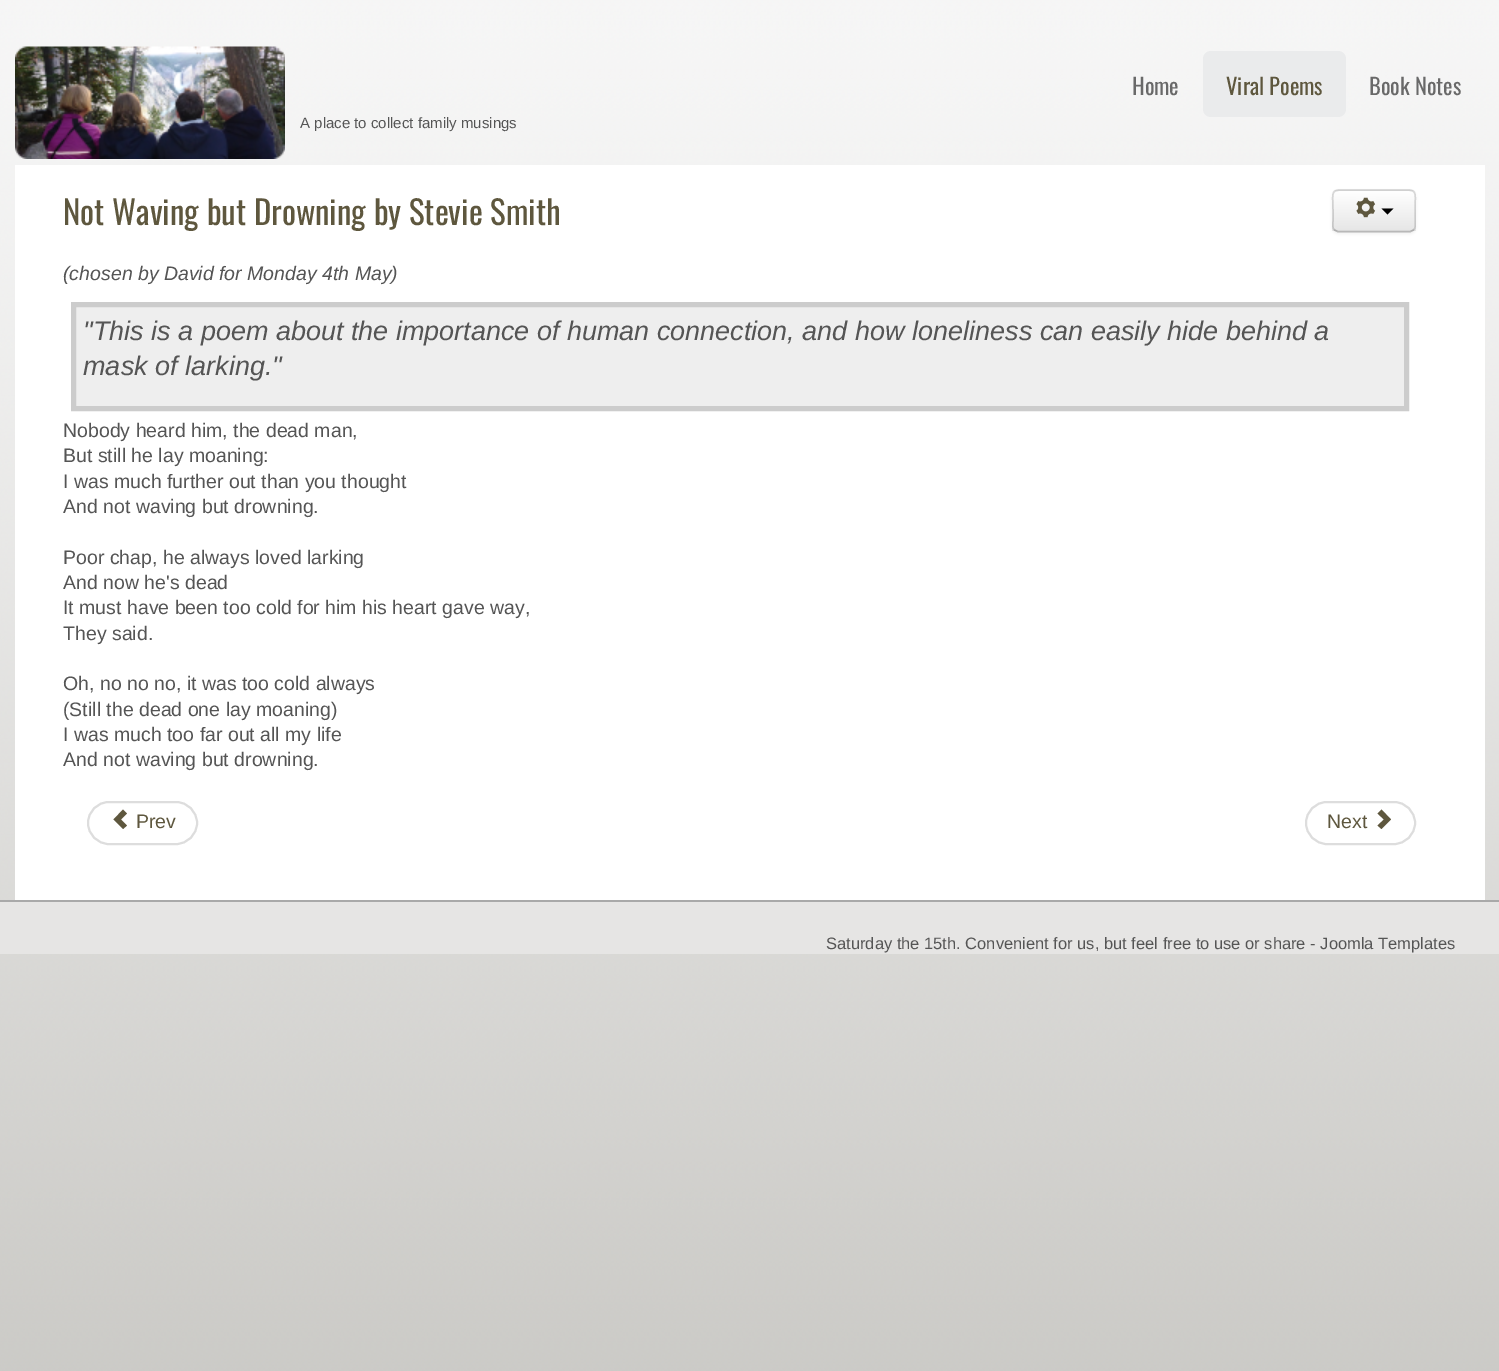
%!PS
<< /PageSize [1499 1371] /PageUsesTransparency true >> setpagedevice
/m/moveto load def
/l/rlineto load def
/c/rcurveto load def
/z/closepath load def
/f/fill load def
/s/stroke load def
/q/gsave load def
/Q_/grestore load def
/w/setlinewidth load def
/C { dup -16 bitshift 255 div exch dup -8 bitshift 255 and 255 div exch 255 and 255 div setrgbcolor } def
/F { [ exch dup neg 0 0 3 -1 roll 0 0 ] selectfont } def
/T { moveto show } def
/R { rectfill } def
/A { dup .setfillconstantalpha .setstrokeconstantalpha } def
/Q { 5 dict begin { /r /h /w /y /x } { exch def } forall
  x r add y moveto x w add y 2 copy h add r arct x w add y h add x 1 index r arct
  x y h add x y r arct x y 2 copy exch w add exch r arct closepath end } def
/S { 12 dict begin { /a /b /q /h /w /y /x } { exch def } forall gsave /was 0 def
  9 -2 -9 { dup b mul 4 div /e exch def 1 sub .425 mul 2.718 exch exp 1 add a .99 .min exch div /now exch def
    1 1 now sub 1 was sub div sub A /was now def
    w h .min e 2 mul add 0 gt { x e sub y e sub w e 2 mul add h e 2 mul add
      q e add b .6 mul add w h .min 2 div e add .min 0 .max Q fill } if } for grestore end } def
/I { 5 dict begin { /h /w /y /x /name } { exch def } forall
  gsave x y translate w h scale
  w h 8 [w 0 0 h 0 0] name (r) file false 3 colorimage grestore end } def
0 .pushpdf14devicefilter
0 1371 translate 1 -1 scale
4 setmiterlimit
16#FFFFFF C
0 0 1499 1371 R
(1.rgb) 0 0 1499 1371 I
(2.rgb) 15 46 270 113 I
/Oswald-Regular 22.5 F
16#696969 C
(Home) 1132 95 T
16#EAEBEC C
1203 51 143 66 8 Q f
16#5E573E C
(Viral Poems) 1226 95 T
16#696969 C
(Book Notes) 1369 95 T
/LiberationSans-Regular 15 F
16#555555 C
(A place to collect family musings) 300 128 T
16#FFFFFF C
15 165 1470 735 R
/Oswald-Regular 33 F
16#5E573E C
(Not Waving but Drowning by Stevie Smith) 63 225 T
16#000000 C
1332 191 84 43 6 1.5 .05 S
16#F5F5F5 C
1332 189 84 44 6 Q f
q
1332 189 84 44 6 Q clip newpath
q 1332 191 m 84 0 l 0 40 l -84 0 l z clip newpath
<< /ShadingType 2 /ColorSpace /DeviceRGB /Coords [1374 191 1374 231] /Extend [true true] /Function << /FunctionType 2 /Domain [0 1] /C0 [1 1 1] /C1 [.902 .902 .902] /N 1 >> >> shfill Q_
Q_
0.2 A
16#FFFFFF C
1338 192 m 72 0 l 6 0 4 12 4 15 c 0 22 l 1 -1 1 -2 1 -3 c 0 -30 l 0 -3 -2 -5 -5 -5 c -71 0 l -3 0 -5 2 -5 5 c 0 -2 2 -4 4 -4 c z f
0.25 A
16#000000 C
1.5 w
1413.5 230 m -3 1.5 l -73 0 l -3 -1.5 l s
0.15 A
1334.5 230 m -2.5 -2 -1.5 -6 -1.5 -9 c 0 -10 l 0 -22 -4 -21 17 -21 c 48 0 l 21 0 17 -1 17 21 c 0 10 l 0 3 1 7 -1.5 9 c s
1 A
(3.rgb) 1356 197 20 21 I
1381.5 208.5 m 12 0 l -6 6 l z f
/LiberationSans-Italic 19.5 F
16#555555 C
(\(chosen by David for Monday 4th May\)) 63 280 T
16#EEEEEE C
73.5 304.5 m 1333 0 l 0 104 l -1333 0 l z q f Q_
16#CCCCCC C
5 w
s
/LiberationSans-Italic 27 F
16#555555 C
("This is a poem about the importance of human connection, and how loneliness can easily hide behind a) 83 340 T
(mask of larking.") 83 375 T
/LiberationSans-Regular 19.5 F
(Nobody heard him, the dead man,) 63 437 T
(But still he lay moaning:) 63 462 T
(I was much further out than you thought) 63 488 T
(And not waving but drowning.) 63 513 T
(Poor chap, he always loved larking) 63 564 T
(And now he's dead) 63 589 T
(It must have been too cold for him his heart gave way,) 63 614 T
(They said.) 63 640 T
(Oh, no no no, it was too cold always) 63 690 T
(\(Still the dead one lay moaning\)) 63 716 T
(I was much too far out all my life) 63 741 T
(And not waving but drowning.) 63 766 T
16#DDDDDD C
2 w
88 802 109 42 21 Q s
16#5E573E C
123 829 m -9.5 -9.5 l 9.5 -10 l 4 4 l -6 6 l 6 6 l z f
(Prev) 136 828 T
16#DDDDDD C
1306 802 109 42 21 Q s
16#5E573E C
(Next) 1327 828 T
1381.5 809.5 m 9.5 10 l -9.5 9.5 l -4 -3.5 l 6.5 -6 l -6.5 -6 l z f
16#E6E5E4 C
0 902 1499 52 R
16#A9A9A9 C
0 900 1499 2 R
/LiberationSans-Regular 16.5 F
16#555555 C
(Saturday the 15th. Convenient for us, but feel free to use or share - Joomla Templates) 826 949 T
.poppdf14devicefilter showpage
